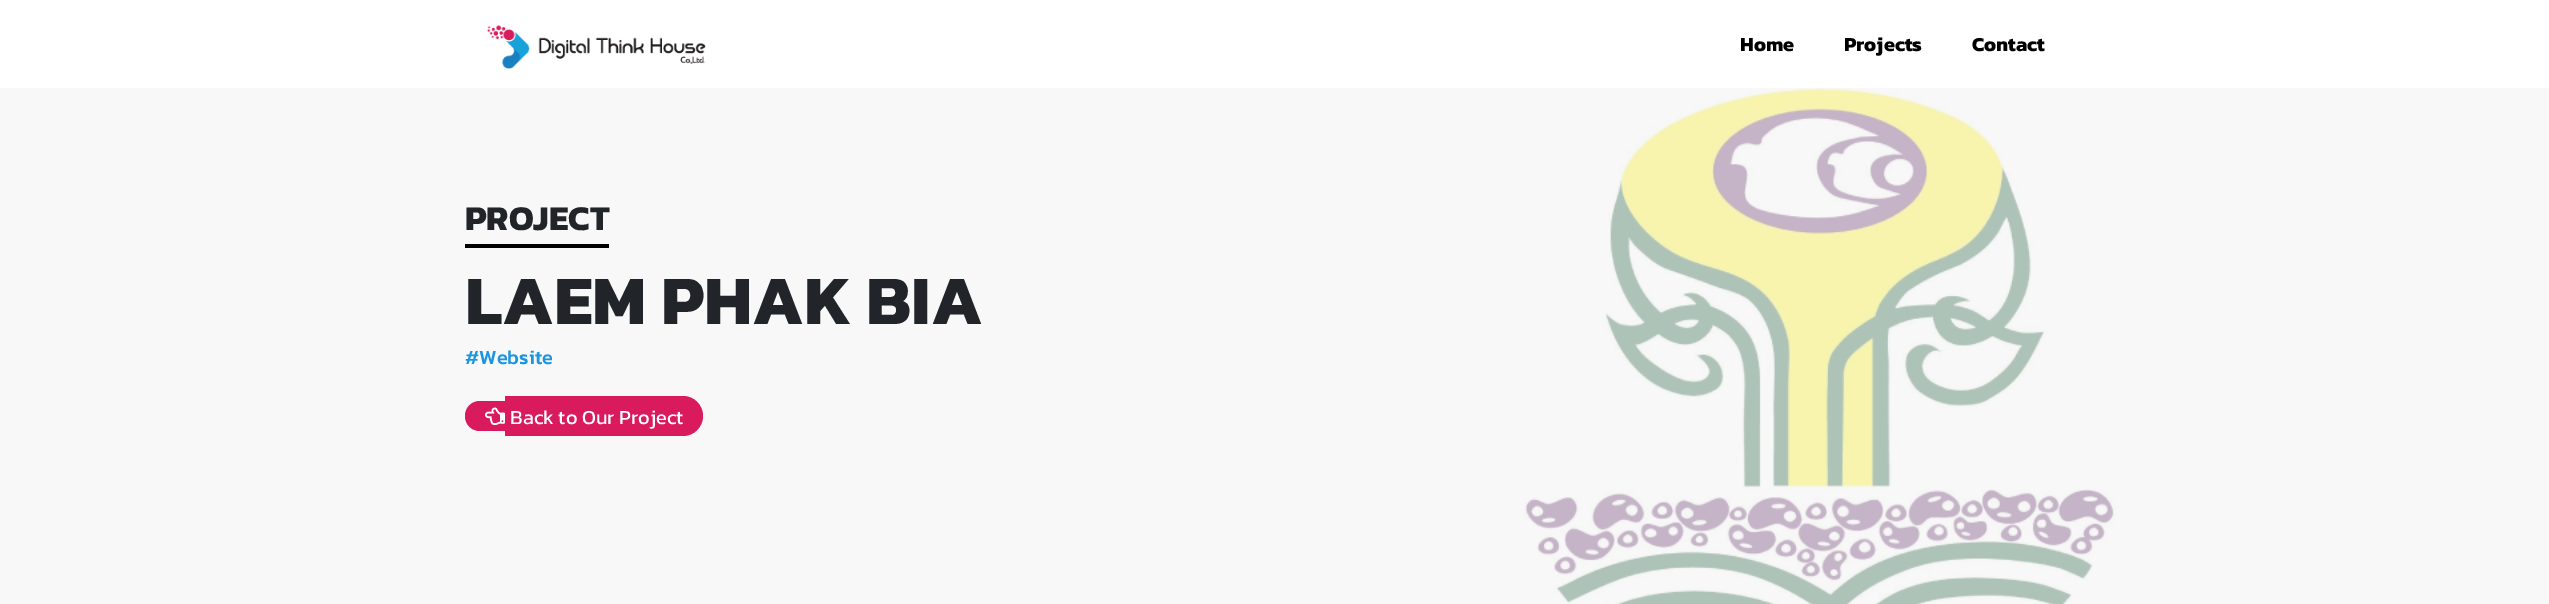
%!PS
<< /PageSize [2549 604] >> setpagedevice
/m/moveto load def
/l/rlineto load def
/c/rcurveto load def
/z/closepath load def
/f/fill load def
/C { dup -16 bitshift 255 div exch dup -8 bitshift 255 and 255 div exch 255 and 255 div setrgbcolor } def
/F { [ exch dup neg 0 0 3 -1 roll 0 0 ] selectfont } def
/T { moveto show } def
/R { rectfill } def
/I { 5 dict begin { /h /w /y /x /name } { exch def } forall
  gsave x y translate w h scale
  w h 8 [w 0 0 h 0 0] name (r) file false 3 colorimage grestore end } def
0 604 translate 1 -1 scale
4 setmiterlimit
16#FFFFFF C
0 0 2549 604 R
(1.rgb) 487 25 219 44 I
/Kanit-Bold 20 F
16#000000 C
(Home) 1740 51 T
(Projects) 1844 51 T
(Contact) 1972 51 T
(2.rgb) 0 88 2549 516 I
/Kanit-Bold 35 F
16#212529 C
(PROJECT) 465 230 T
16#000000 C
465 244 144 4 R
/Kanit-Bold 70 F
16#212529 C
(LAEM PHAK BIA) 465 324 T
/Kanit-Medium 20 F
16#1B95E0 C
(#Website) 465 364 T
16#D91B5D C
480 401 m 25 0 l 0 30 l -25 0 l -8.5 0 -15 -6.5 -15 -15 c 0 -8.5 6.5 -15 15 -15 c z f
505 396 m 178 0 l 11 0 20 9 20 20 c 0 11 -9 20 -20 20 c -178 0 l z f
(3.rgb) 485 407 20 18 I
/Kanit-Regular 20 F
16#FFFFFF C
(Back to Our Project) 510 424 T
showpage
